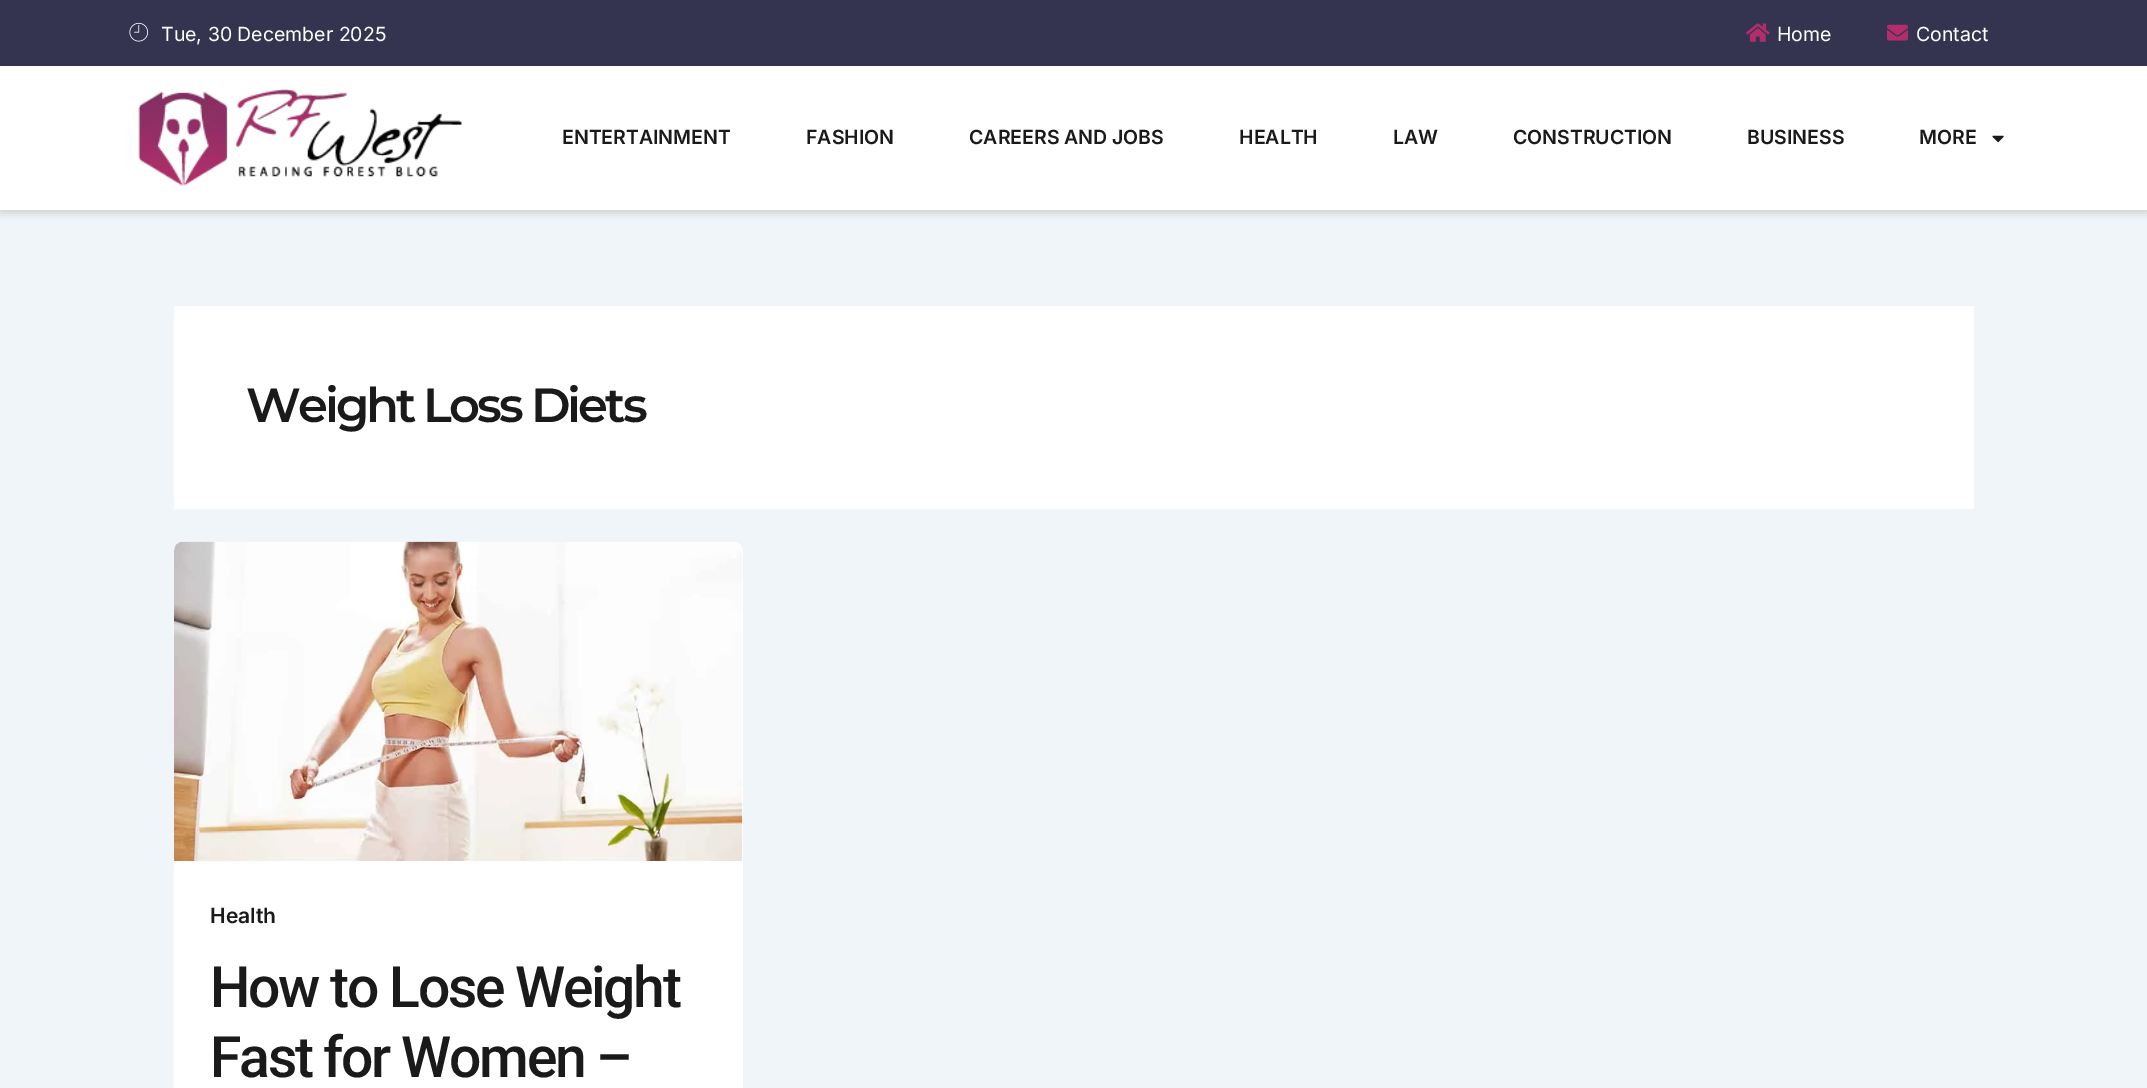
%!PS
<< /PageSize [2147 1088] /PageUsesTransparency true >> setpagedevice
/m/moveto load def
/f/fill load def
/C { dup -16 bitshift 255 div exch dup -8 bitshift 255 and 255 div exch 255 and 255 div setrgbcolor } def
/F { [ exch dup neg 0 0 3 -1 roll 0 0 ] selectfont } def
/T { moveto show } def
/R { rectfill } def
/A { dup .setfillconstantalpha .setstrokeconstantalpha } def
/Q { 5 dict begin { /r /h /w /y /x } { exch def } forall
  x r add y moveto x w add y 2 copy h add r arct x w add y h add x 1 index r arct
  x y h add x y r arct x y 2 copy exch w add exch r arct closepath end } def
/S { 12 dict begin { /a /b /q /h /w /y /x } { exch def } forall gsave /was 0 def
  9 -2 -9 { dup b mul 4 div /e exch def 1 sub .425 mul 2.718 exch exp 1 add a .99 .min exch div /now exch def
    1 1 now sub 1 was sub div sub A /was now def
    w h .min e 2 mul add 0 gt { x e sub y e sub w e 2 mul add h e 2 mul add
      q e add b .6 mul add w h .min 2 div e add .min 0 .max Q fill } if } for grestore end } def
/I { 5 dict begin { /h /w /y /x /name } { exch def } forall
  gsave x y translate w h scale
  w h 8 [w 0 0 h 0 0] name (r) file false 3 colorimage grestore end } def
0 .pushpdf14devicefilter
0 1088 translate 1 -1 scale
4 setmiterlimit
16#F0F5FA C
0 0 2147 1088 R
16#343451 C
0 0 2147 66 R
(1.rgb) 129 22 20 20 I
/Inter-Regular 19.5 F
16#FFFFFF C
(Tue, 30 December 2025) 161 41 T
(2.rgb) 1746 23 24 19 I
(Home) 1777 41 T
(3.rgb) 1887 24 21 17 I
(Contact) 1916 41 T
16#000000 C
0 69 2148 144 0 4 .15 S
16#FFFFFF C
0 66 2147 144 R
(4.rgb) 138 88 324 98 I
/Inter-SemiBold 19.5 F
16#1A1A1A C
(ENTERTAINMENT) 562 144 T
(FASHION) 806 144 T
(CAREERS AND JOBS) 969 144 T
(HEALTH) 1239 144 T
(LAW) 1393 144 T
(CONSTRUCTION) 1513 144 T
(BUSINESS) 1747 144 T
(MORE) 1919 144 T
(5.rgb) 1992 135 12 8 I
16#FFFFFF C
174 306 1800 203 R
/Montserrat-SemiBold 48 F
16#1A1A1A C
246 422 m -3 0 (Weight Loss Diets) ashow
16#FFFFFF C
174 542 569 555 9 Q f
(6.rgb) 174 541 569 320 I
/Inter-SemiBold 21 F
16#1A1A1A C
(Health) 210 923 T
/Roboto-Medium 57 F
210 1007 m -2.25 0 (How to Lose Weight) ashow
210 1077 m -2.25 0 (Fast for Women –) ashow
.poppdf14devicefilter showpage
